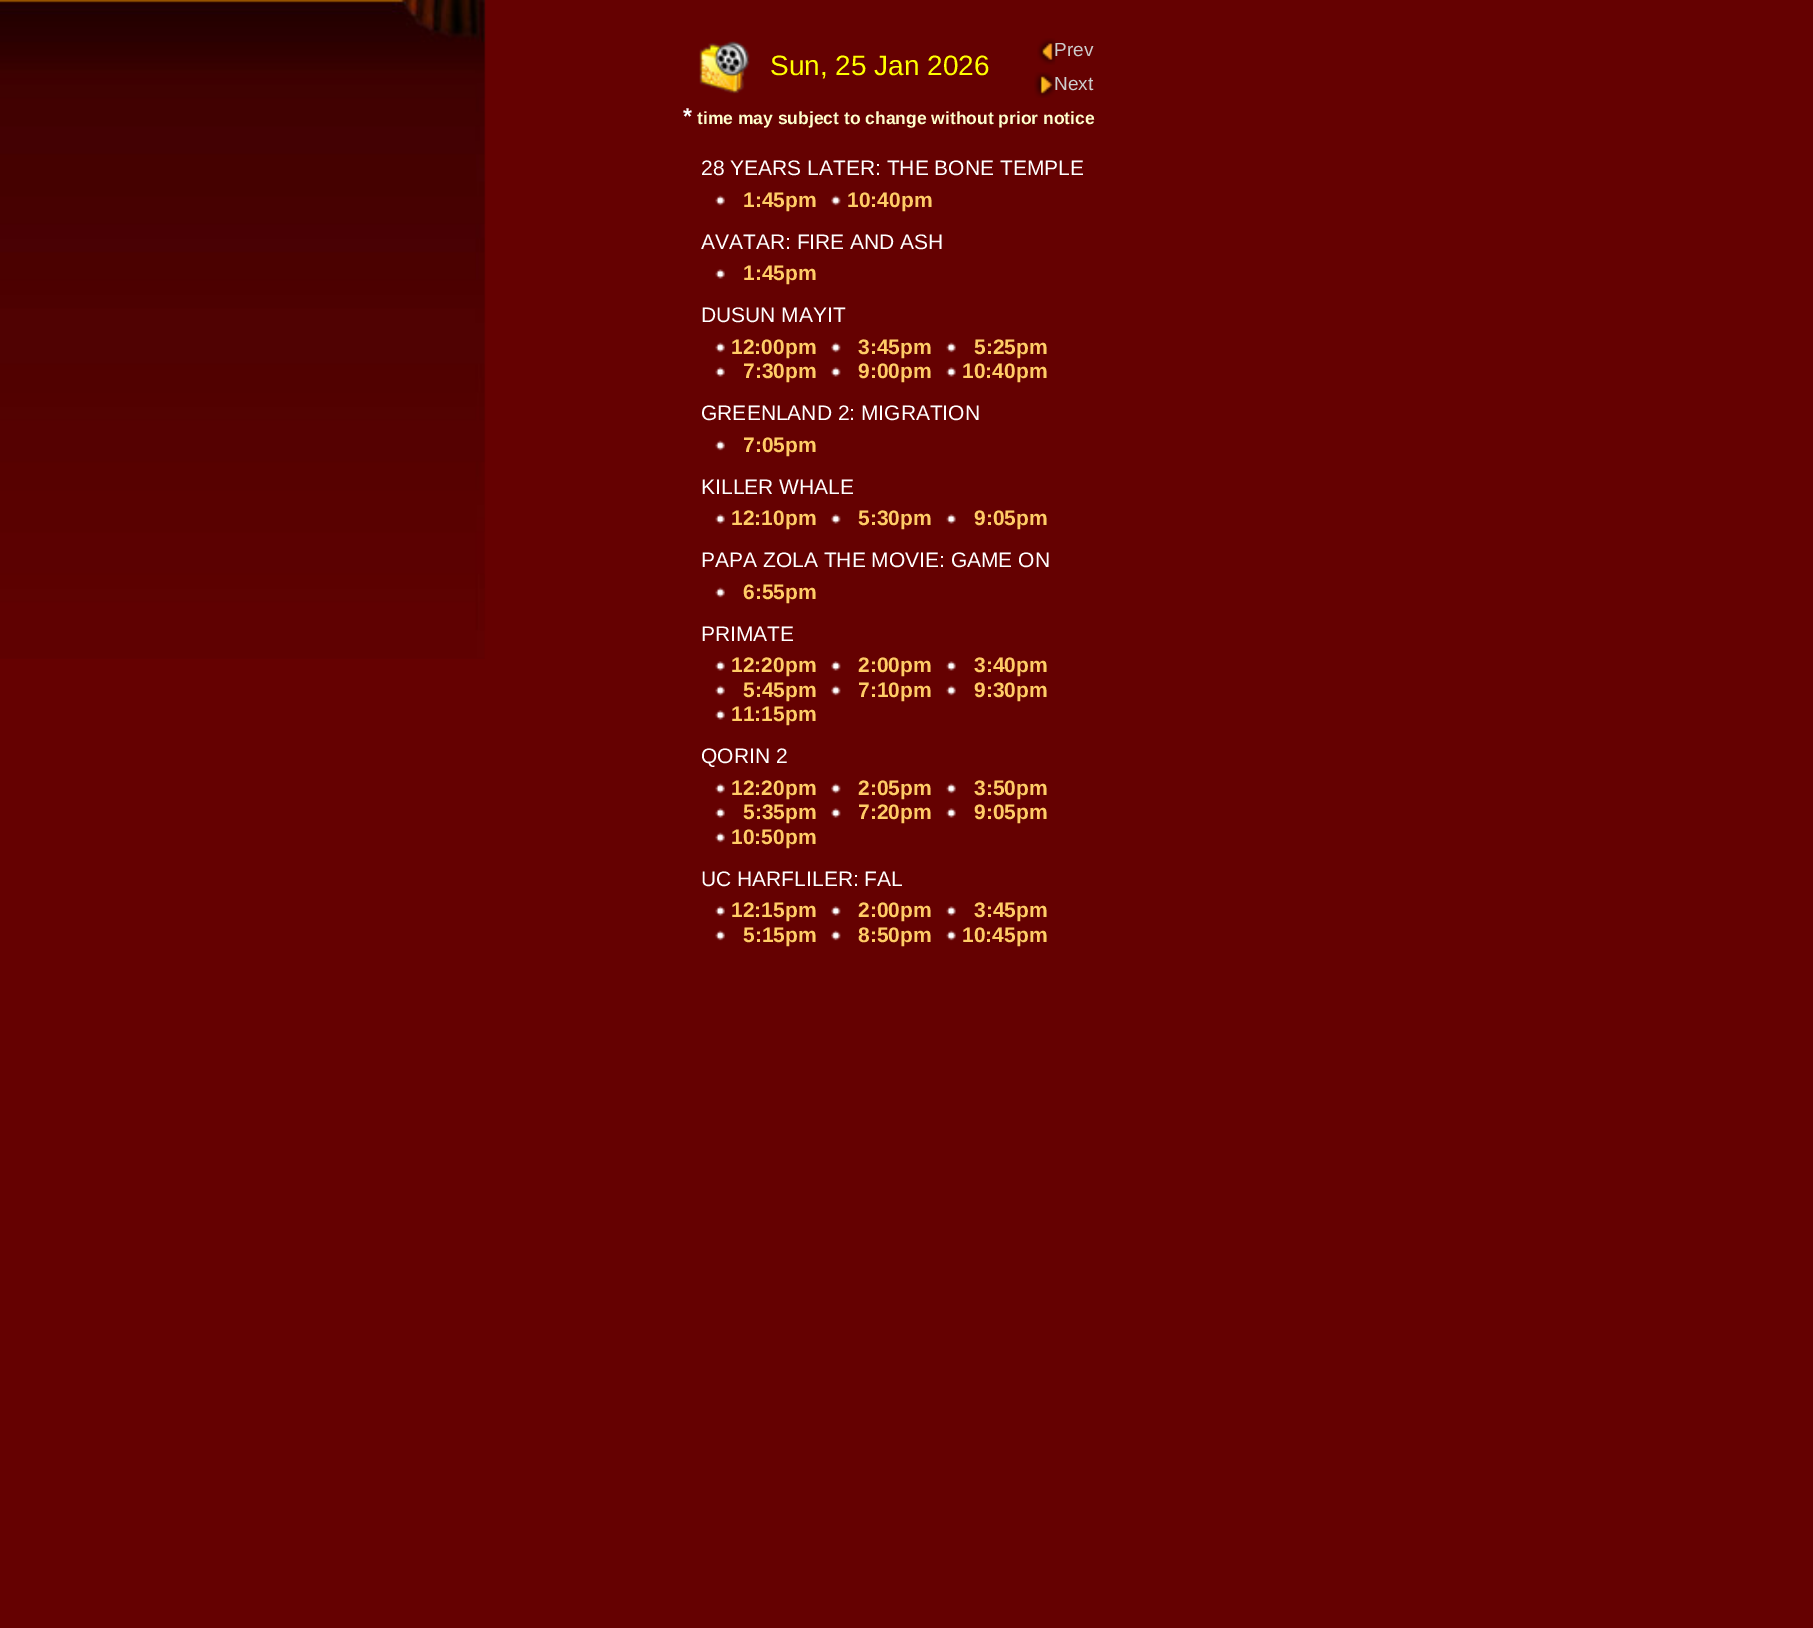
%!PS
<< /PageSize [1813 1628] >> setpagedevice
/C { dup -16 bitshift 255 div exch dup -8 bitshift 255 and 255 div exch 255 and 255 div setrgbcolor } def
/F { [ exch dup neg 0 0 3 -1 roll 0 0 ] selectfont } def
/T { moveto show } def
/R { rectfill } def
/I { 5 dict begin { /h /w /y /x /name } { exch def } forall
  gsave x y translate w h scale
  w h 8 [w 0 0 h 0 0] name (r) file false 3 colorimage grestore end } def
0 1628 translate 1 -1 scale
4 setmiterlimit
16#650101 C
0 0 1813 1628 R
(1.rgb) 0 0 486 659 I
(2.rgb) 699 41 51 53 I
/LiberationSans-Regular 28 F
16#FFFF00 C
(Sun, 25 Jan 2026) 770 75 T
(3.rgb) 1037 38 19 27 I
/LiberationSans-Regular 19 F
16#CCCCCC C
(Prev) 1054 56 T
(4.rgb) 1034 72 21 26 I
(Next) 1054 90 T
/LiberationSans-Bold 23 F
16#FFFFFF C
(*) 683 124 T
/LiberationSans-Bold 17.5 F
16#FFFFCC C
(time may subject to change without prior notice) 697 124 T
/LiberationSans-Regular 21 F
16#FFFFFF C
(28 YEARS LATER: THE BONE TEMPLE) 701 175 T
(5.rgb) 715 195 10 11 I
/LiberationSans-Bold 21 F
16#FFCC66 C
(1:45pm) 743 207 T
(6.rgb) 831 195 10 11 I
(10:40pm) 847 207 T
/LiberationSans-Regular 21 F
16#FFFFFF C
(AVATAR: FIRE AND ASH) 701 249 T
(7.rgb) 715 269 10 10 I
/LiberationSans-Bold 21 F
16#FFCC66 C
(1:45pm) 743 280 T
/LiberationSans-Regular 21 F
16#FFFFFF C
(DUSUN MAYIT) 701 322 T
(5.rgb) 715 342 10 11 I
/LiberationSans-Bold 21 F
16#FFCC66 C
(12:00pm) 731 354 T
(6.rgb) 831 342 10 11 I
(3:45pm) 858 354 T
(8.rgb) 946 342 10 11 I
(5:25pm) 974 354 T
(7.rgb) 715 367 10 10 I
(7:30pm) 743 378 T
(9.rgb) 831 367 10 10 I
(9:00pm) 858 378 T
(10.rgb) 946 367 10 10 I
(10:40pm) 962 378 T
/LiberationSans-Regular 21 F
16#FFFFFF C
(GREENLAND 2: MIGRATION) 701 420 T
(5.rgb) 715 440 10 11 I
/LiberationSans-Bold 21 F
16#FFCC66 C
(7:05pm) 743 452 T
/LiberationSans-Regular 21 F
16#FFFFFF C
(KILLER WHALE) 701 494 T
(7.rgb) 715 514 10 10 I
/LiberationSans-Bold 21 F
16#FFCC66 C
(12:10pm) 731 525 T
(9.rgb) 831 514 10 10 I
(5:30pm) 858 525 T
(10.rgb) 946 514 10 10 I
(9:05pm) 974 525 T
/LiberationSans-Regular 21 F
16#FFFFFF C
(PAPA ZOLA THE MOVIE: GAME ON) 701 567 T
(5.rgb) 715 587 10 11 I
/LiberationSans-Bold 21 F
16#FFCC66 C
(6:55pm) 743 599 T
/LiberationSans-Regular 21 F
16#FFFFFF C
(PRIMATE) 701 641 T
(7.rgb) 715 661 10 10 I
/LiberationSans-Bold 21 F
16#FFCC66 C
(12:20pm) 731 672 T
(9.rgb) 831 661 10 10 I
(2:00pm) 858 672 T
(10.rgb) 946 661 10 10 I
(3:40pm) 974 672 T
(5.rgb) 715 685 10 11 I
(5:45pm) 743 697 T
(6.rgb) 831 685 10 11 I
(7:10pm) 858 697 T
(8.rgb) 946 685 10 11 I
(9:30pm) 974 697 T
(7.rgb) 715 710 10 10 I
(11:15pm) 731 721 T
/LiberationSans-Regular 21 F
16#FFFFFF C
(QORIN 2) 701 763 T
(5.rgb) 715 783 10 11 I
/LiberationSans-Bold 21 F
16#FFCC66 C
(12:20pm) 731 795 T
(6.rgb) 831 783 10 11 I
(2:05pm) 858 795 T
(8.rgb) 946 783 10 11 I
(3:50pm) 974 795 T
(7.rgb) 715 808 10 10 I
(5:35pm) 743 819 T
(9.rgb) 831 808 10 10 I
(7:20pm) 858 819 T
(10.rgb) 946 808 10 10 I
(9:05pm) 974 819 T
(5.rgb) 715 832 10 11 I
(10:50pm) 731 844 T
/LiberationSans-Regular 21 F
16#FFFFFF C
(UC HARFLILER: FAL) 701 886 T
(7.rgb) 715 906 10 10 I
/LiberationSans-Bold 21 F
16#FFCC66 C
(12:15pm) 731 917 T
(9.rgb) 831 906 10 10 I
(2:00pm) 858 917 T
(10.rgb) 946 906 10 10 I
(3:45pm) 974 917 T
(5.rgb) 715 930 10 11 I
(5:15pm) 743 942 T
(6.rgb) 831 930 10 11 I
(8:50pm) 858 942 T
(8.rgb) 946 930 10 11 I
(10:45pm) 962 942 T
showpage
